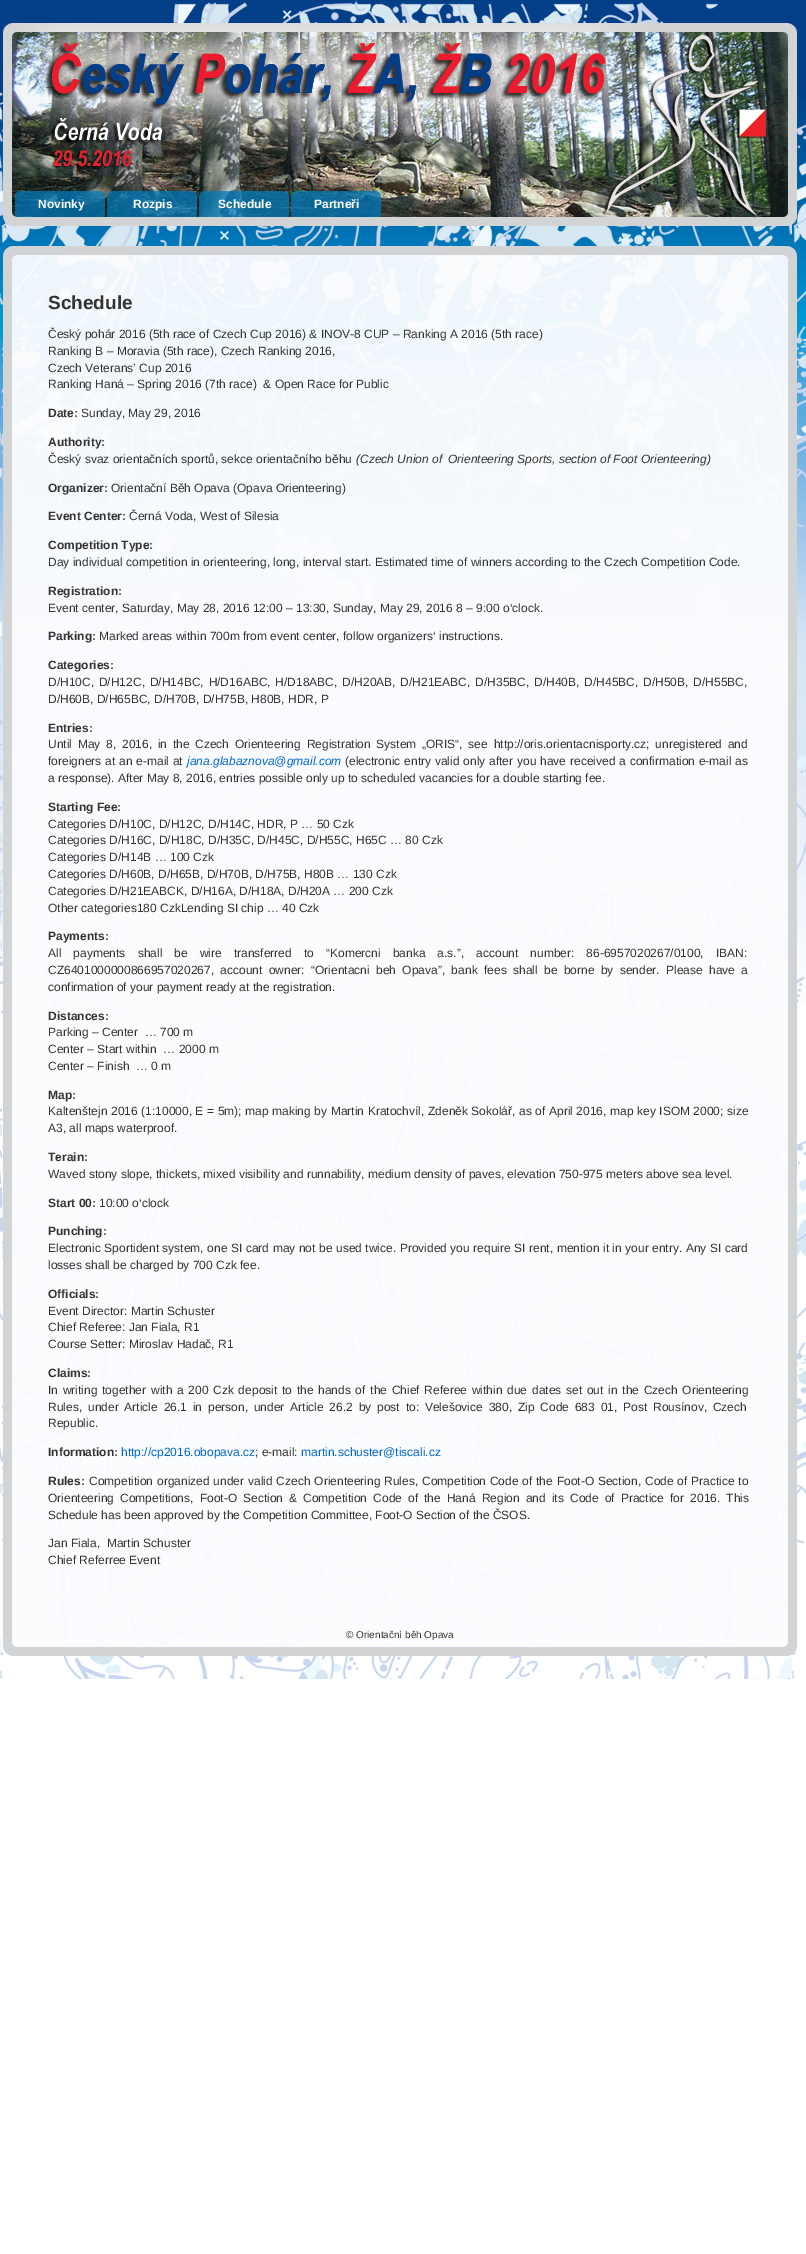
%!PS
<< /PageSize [806 2254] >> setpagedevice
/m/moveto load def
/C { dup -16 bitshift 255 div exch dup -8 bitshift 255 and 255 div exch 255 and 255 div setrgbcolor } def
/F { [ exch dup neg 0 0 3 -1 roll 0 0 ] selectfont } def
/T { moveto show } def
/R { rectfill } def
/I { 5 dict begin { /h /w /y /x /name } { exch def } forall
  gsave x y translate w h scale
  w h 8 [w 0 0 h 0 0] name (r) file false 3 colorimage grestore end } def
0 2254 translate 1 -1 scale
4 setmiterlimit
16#FFFFFF C
0 0 806 2254 R
(1.rgb) 0 0 806 1006 I
(2.rgb) 0 0 806 1679 I
(3.rgb) 3 23 794 203 I
(4.rgb) 15 191 90 26 I
/LiberationSans-Bold 12 F
(Novinky) 38 208 T
(5.rgb) 107 191 90 26 I
(Rozpis) 133 208 T
(6.rgb) 199 191 90 26 I
(Schedule) 218 208 T
(7.rgb) 291 191 90 26 I
(Partneři) 314 208 T
(8.rgb) 3 246 794 16 I
(9.rgb) 3 262 794 1378 I
/LiberationSans-Bold 19 F
16#333333 C
(Schedule) 48 309 T
/LiberationSans-Regular 12 F
(Český pohár 2016 \(5th race of Czech Cup 2016\) & INOV-8 CUP – Ranking A 2016 \(5th race\)) 48 338 T
(Ranking B – Moravia \(5th race\), Czech Ranking 2016,) 48 355 T
(Czech Veterans’ Cup 2016) 48 372 T
(Ranking Haná – Spring 2016 \(7th race\)  & Open Race for Public) 48 388 T
/LiberationSans-Bold 12 F
(Date:) 48 417 T
/LiberationSans-Regular 12 F
(Sunday, May 29, 2016) 81 417 T
/LiberationSans-Bold 12 F
(Authority:) 48 446 T
/LiberationSans-Regular 12 F
(Český svaz orientačních sportů, sekce orientačního běhu) 48 463 T
/LiberationSans-Italic 12 F
(\(Czech Union of) 356 463 T
(Orienteering Sports, section of Foot Orienteering\)) 448 463 T
/LiberationSans-Bold 12 F
(Organizer:) 48 492 T
/LiberationSans-Regular 12 F
(Orientační Běh Opava \(Opava Orienteering\)) 111 492 T
/LiberationSans-Bold 12 F
(Event Center:) 48 520 T
/LiberationSans-Regular 12 F
(Černá Voda, West of Silesia) 129 520 T
/LiberationSans-Bold 12 F
(Competition Type:) 48 549 T
/LiberationSans-Regular 12 F
(Day individual competition in orienteering, long, interval start. Estimated time of winners according to the Czech Competition Code.) 48 566 T
/LiberationSans-Bold 12 F
(Registration:) 48 595 T
/LiberationSans-Regular 12 F
(Event center, Saturday, May 28, 2016 12:00 – 13:30, Sunday, May 29, 2016 8 – 9:00 o‘clock.) 48 612 T
/LiberationSans-Bold 12 F
(Parking:) 48 640 T
/LiberationSans-Regular 12 F
(Marked areas within 700m from event center, follow organizers‘ instructions.) 99 640 T
/LiberationSans-Bold 12 F
(Categories:) 48 669 T
/LiberationSans-Regular 12 F
48 686 m 1.5 0 32 (D/H10C, D/H12C, D/H14BC, H/D16ABC, H/D18ABC, D/H20AB, D/H21EABC, D/H35BC, D/H40B, D/H45BC, D/H50B, D/H55BC,) widthshow
(D/H60B, D/H65BC, D/H70B, D/H75B, H80B, HDR, P) 48 703 T
/LiberationSans-Bold 12 F
(Entries:) 48 732 T
/LiberationSans-Regular 12 F
48 748 m 2.4 0 32 (Until May 8, 2016, in the Czech Orienteering Registration System „ORIS“, see http://oris.orientacnisporty.cz; unregistered and) widthshow
48 765 m .5 0 32 (foreigners at an e-mail at) widthshow
/LiberationSans-Italic 12 F
16#0066CC C
(jana.glabaznova@gmail.com) 187 765 T
/LiberationSans-Regular 12 F
16#333333 C
345 765 m .5 0 32 (\(electronic entry valid only after you have received a confirmation e-mail as) widthshow
(a response\). After May 8, 2016, entries possible only up to scheduled vacancies for a double starting fee.) 48 782 T
/LiberationSans-Bold 12 F
(Starting Fee:) 48 811 T
/LiberationSans-Regular 12 F
(Categories D/H10C, D/H12C, D/H14C, HDR, P … 50 Czk) 48 828 T
(Categories D/H16C, D/H18C, D/H35C, D/H45C, D/H55C, H65C … 80 Czk) 48 844 T
(Categories D/H14B … 100 Czk) 48 861 T
(Categories D/H60B, D/H65B, D/H70B, D/H75B, H80B … 130 Czk) 48 878 T
(Categories D/H21EABCK, D/H16A, D/H18A, D/H20A … 200 Czk) 48 895 T
(Other categories180 CzkLending SI chip … 40 Czk) 48 912 T
/LiberationSans-Bold 12 F
(Payments:) 48 940 T
/LiberationSans-Regular 12 F
48 957 m 8.75 0 32 (All payments shall be wire transferred to “Komercni banka a.s.”, account number: 86-6957020267/0100, IBAN:) widthshow
48 974 m 3 0 32 (CZ6401000000866957020267, account owner: “Orientacni beh Opava”, bank fees shall be borne by sender. Please have a) widthshow
(confirmation of your payment ready at the registration.) 48 991 T
/LiberationSans-Bold 12 F
(Distances:) 48 1020 T
/LiberationSans-Regular 12 F
(Parking – Center  … 700 m) 48 1036 T
(Center – Start within  … 2000 m) 48 1053 T
(Center – Finish  … 0 m) 48 1070 T
/LiberationSans-Bold 12 F
(Map:) 48 1099 T
/LiberationSans-Regular 12 F
48 1115 m .25 0 32 (Kaltenštejn 2016 \(1:10000, E = 5m\); map making by Martin Kratochvíl, Zdeněk Sokolář, as of April 2016, map key ISOM 2000; size) widthshow
(A3, all maps waterproof.) 48 1132 T
/LiberationSans-Bold 12 F
(Terain:) 48 1161 T
/LiberationSans-Regular 12 F
(Waved stony slope, thickets, mixed visibility and runnability, medium density of paves, elevation 750-975 meters above sea level.) 48 1178 T
/LiberationSans-Bold 12 F
(Start 00:) 48 1207 T
/LiberationSans-Regular 12 F
(10:00 o‘clock) 99 1207 T
/LiberationSans-Bold 12 F
(Punching:) 48 1235 T
/LiberationSans-Regular 12 F
48 1252 m .2 0 32 (Electronic Sportident system, one SI card may not be used twice. Provided you require SI rent, mention it in your entry. Any SI card) widthshow
(losses shall be charged by 700 Czk fee.) 48 1269 T
/LiberationSans-Bold 12 F
(Officials:) 48 1298 T
/LiberationSans-Regular 12 F
(Event Director: Martin Schuster) 48 1315 T
(Chief Referee: Jan Fiala, R1) 48 1331 T
(Course Setter: Miroslav Hadač, R1) 48 1348 T
/LiberationSans-Bold 12 F
(Claims:) 48 1377 T
/LiberationSans-Regular 12 F
48 1394 m 1.4 0 32 (In writing together with a 200 Czk deposit to the hands of the Chief Referee within due dates set out in the Czech Orienteering) widthshow
48 1411 m 2.5 0 32 (Rules, under Article 26.1 in person, under Article 26.2 by post to: Velešovice 380, Zip Code 683 01, Post Rousínov, Czech) widthshow
(Republic.) 48 1427 T
/LiberationSans-Bold 12 F
(Information:) 48 1456 T
/LiberationSans-Regular 12 F
16#0066CC C
(http://cp2016.obopava.cz) 121 1456 T
16#333333 C
(; e-mail:) 255 1456 T
16#0066CC C
(martin.schuster@tiscali.cz) 301 1456 T
/LiberationSans-Bold 12 F
16#333333 C
(Rules:) 48 1485 T
/LiberationSans-Regular 12 F
89 1485 m .5 0 32 (Competition organized under valid Czech Orienteering Rules, Competition Code of the Foot-O Section, Code of Practice to) widthshow
48 1502 m 2.75 0 32 (Orienteering Competitions, Foot-O Section & Competition Code of the Haná Region and its Code of Practice for 2016. This) widthshow
(Schedule has been approved by the Competition Committee, Foot-O Section of the ČSOS.) 48 1519 T
(Jan Fiala,  Martin Schuster) 48 1547 T
(Chief Referree Event) 48 1564 T
/LiberationSans-Regular 10 F
(© Orientační běh Opava) 346 1638 T
(10.rgb) 3 1640 794 16 I
showpage
